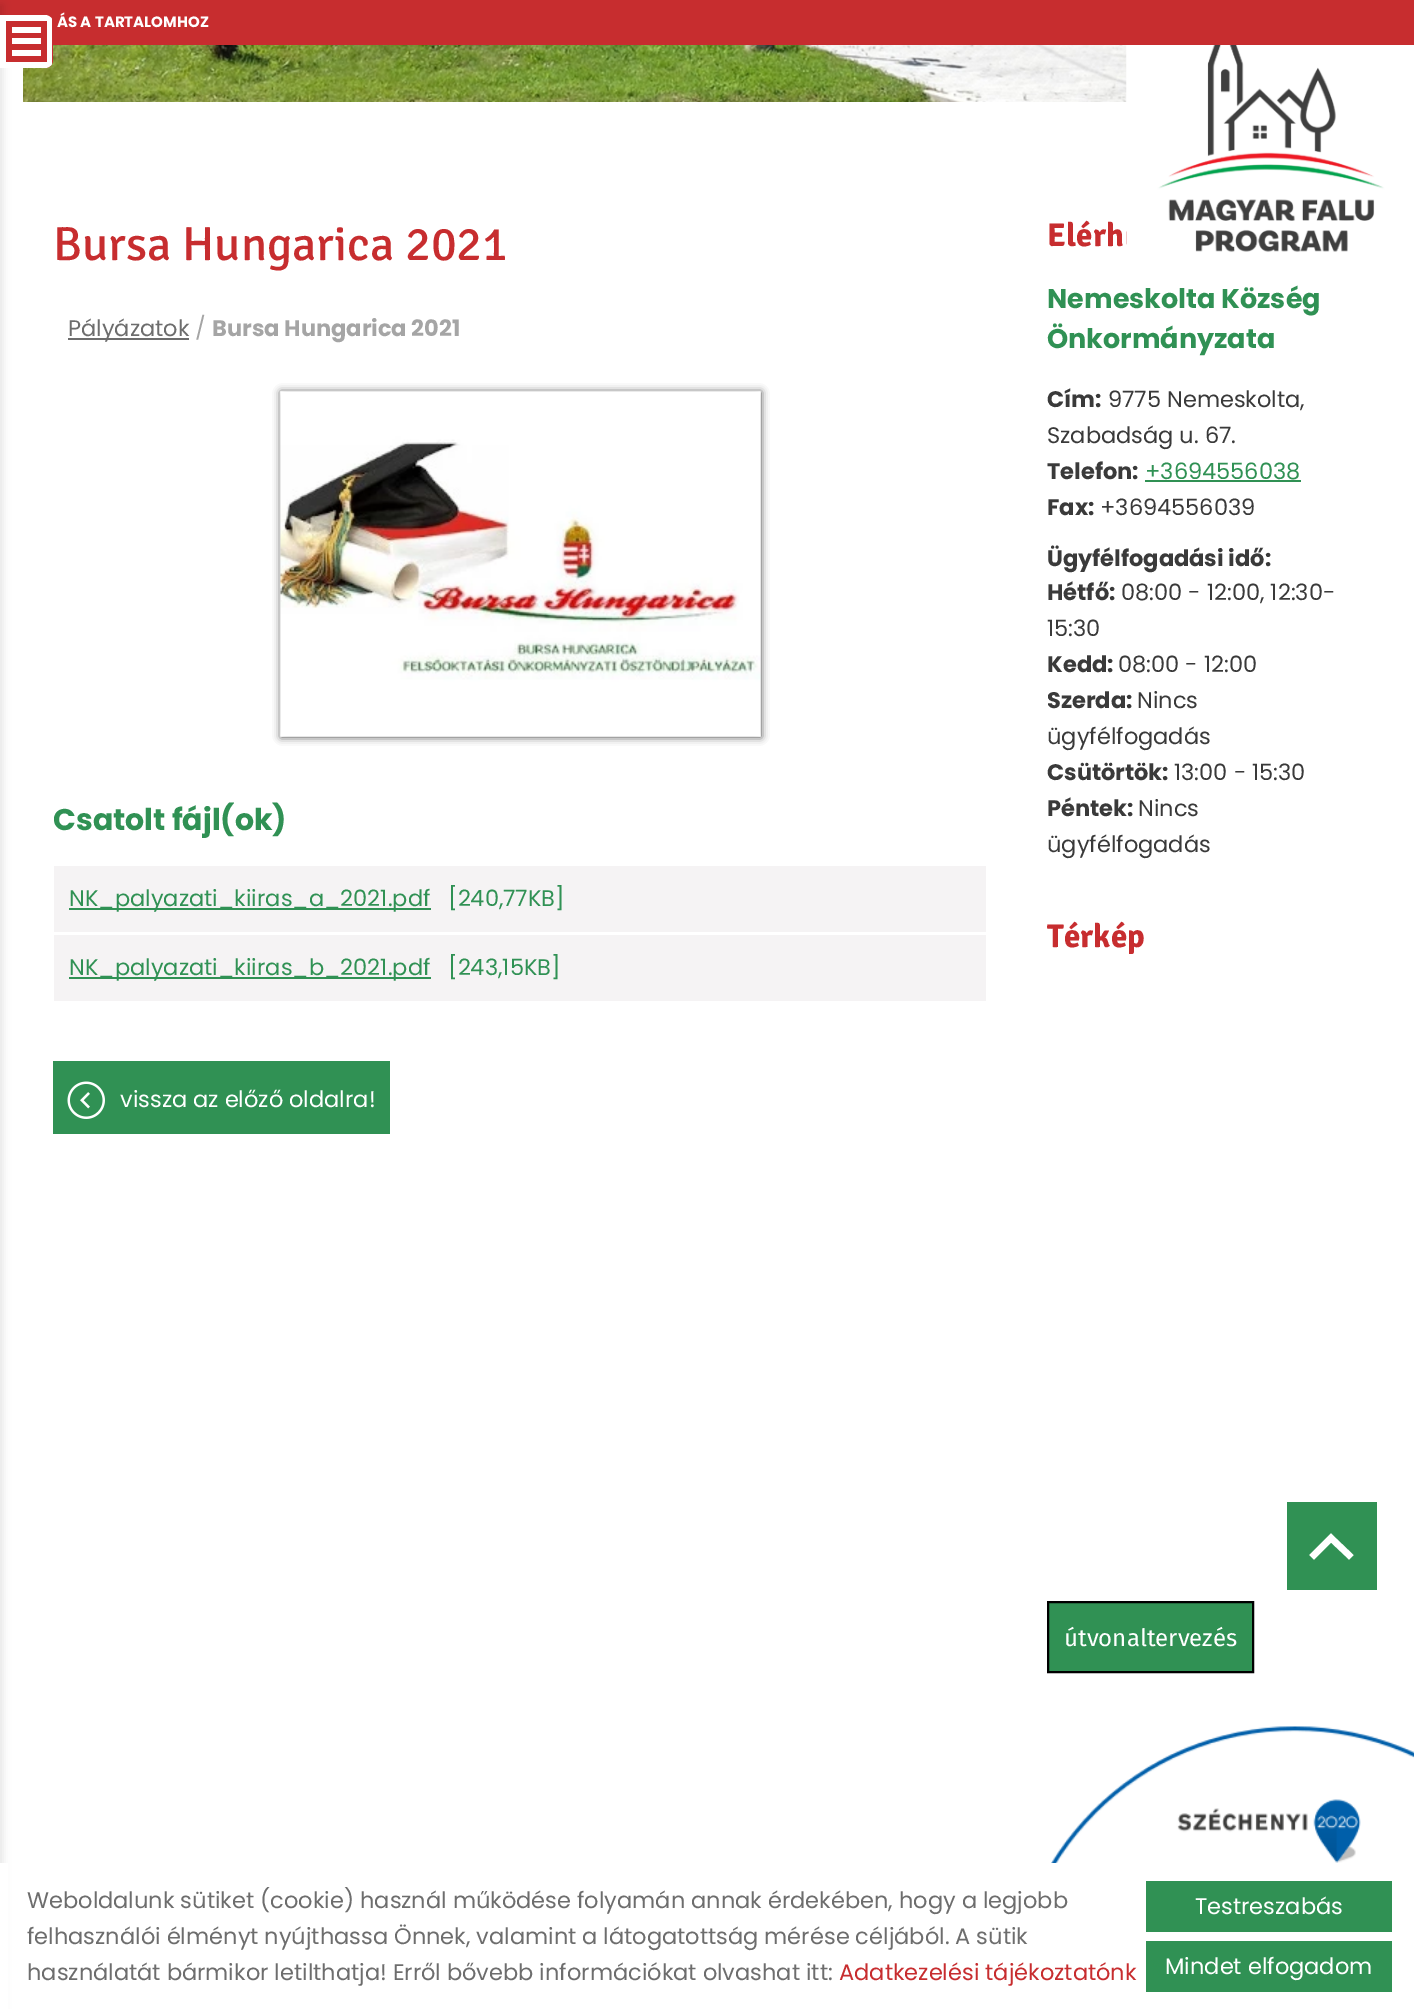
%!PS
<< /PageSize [1414 2009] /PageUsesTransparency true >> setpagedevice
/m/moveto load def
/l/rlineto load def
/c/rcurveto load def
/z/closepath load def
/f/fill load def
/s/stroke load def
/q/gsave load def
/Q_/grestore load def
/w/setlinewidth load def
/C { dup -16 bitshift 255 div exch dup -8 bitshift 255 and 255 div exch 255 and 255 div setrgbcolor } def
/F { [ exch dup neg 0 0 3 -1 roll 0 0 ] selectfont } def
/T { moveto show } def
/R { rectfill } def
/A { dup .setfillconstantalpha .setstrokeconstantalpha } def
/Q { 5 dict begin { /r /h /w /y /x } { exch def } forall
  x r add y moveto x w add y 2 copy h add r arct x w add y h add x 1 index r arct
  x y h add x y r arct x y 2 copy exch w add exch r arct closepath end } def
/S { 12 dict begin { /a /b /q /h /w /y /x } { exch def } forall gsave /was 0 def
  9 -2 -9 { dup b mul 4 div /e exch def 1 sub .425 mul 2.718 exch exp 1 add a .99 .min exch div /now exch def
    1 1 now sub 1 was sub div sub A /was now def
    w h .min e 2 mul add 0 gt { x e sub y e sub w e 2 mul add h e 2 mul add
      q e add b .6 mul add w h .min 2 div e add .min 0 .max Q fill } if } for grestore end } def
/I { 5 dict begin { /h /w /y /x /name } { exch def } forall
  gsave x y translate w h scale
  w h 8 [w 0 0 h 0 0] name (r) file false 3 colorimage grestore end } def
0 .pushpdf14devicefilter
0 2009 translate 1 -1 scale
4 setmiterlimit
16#FFFFFF C
0 0 1414 2009 R
16#C72D2F C
0 0 1414 45 R
/Poppins-Bold 15 F
16#FFFFFF C
(ÁS A TARTALOMHOZ) 57 27 T
16#000000 C
-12 5 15 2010 0 4 .1 S
(1.rgb) 23 45 1104 57 I
16#C72D2F C
0 15 m 45 0 l 4.5 0 8 3.5 8 8 c 0 37 l 0 4.5 -3.5 8 -8 8 c -45 0 l z f
16#FFFFFF C
0 15 m 0 53 l 45 0 l 3 0 6 -2 7 -4 c 0 -45 l -1 -2 -4 -4 -7 -4 c z 47 62 m -41 0 l 0 -41 l 41 0 l z 12 27 m 29 0 l 0 6 l -29 0 l z 12 38 m 29 0 l 0 6 l -29 0 l z 12 50 m 29 0 l 0 6 l -29 0 l z eofill
(2.rgb) 1126 45 266 209 I
/Signika-Light 48 F
16#C72D2F C
(Bursa Hungarica 2021) 53 260 T
16#6D6D6D C
68 338 121 2 R
/Poppins-Regular 22.5 F
(Pályázatok) 68 336 T
16#A5A5A5 C
(/) 195 336 T
/Poppins-Bold 22.5 F
(Bursa Hungarica 2021) 212 336 T
16#060606 C
281 392 480 345 0 4 .74 S
(3.rgb) 280 391 481 346 I
/Poppins-Bold 30 F
16#309154 C
(Csatolt fájl\(ok\)) 53 830 T
16#F5F3F4 C
54 866 932 66 R
16#309154 C
69 908 362 2 R
/Poppins-Regular 22.5 F
(NK_palyazati_kiiras_a_2021.pdf) 69 906 T
([240,77KB]) 448 906 T
16#F5F3F4 C
54 935 932 66 R
16#309154 C
69 977 362 2 R
(NK_palyazati_kiiras_b_2021.pdf) 69 975 T
([243,15KB]) 448 975 T
53 1061 337 73 R
(4.rgb) 67 1081 38 38 I
16#FFFFFF C
(vissza az előző oldalra!) 120 1107 T
/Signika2-Light 33 F
16#C72D2F C
(Elérh) 1047 246 T
/Poppins-Bold 27 F
16#309154 C
(Nemeskolta Község) 1047 308 T
(Önkormányzata) 1047 348 T
/Poppins-Bold 22.5 F
16#3A3A3A C
(Cím:) 1047 407 T
/Poppins-Regular 22.5 F
(9775 Nemeskolta,) 1108 407 T
(Szabadság u. 67.) 1047 443 T
/Poppins-Bold 22.5 F
(Telefon:) 1047 479 T
/Poppins-Regular 22.5 F
16#309154 C
(+3694556038) 1145 479 T
1145 480 156 2 R
/Poppins-Bold 22.5 F
16#3A3A3A C
(Fax:) 1047 515 T
/Poppins-Regular 22.5 F
(+3694556039) 1100 515 T
/Poppins-Bold 22.5 F
(Ügyfélfogadási idő:) 1047 566 T
(Hétfő:) 1047 600 T
/Poppins-Regular 22.5 F
(08:00 - 12:00, 12:30-) 1121 600 T
(15:30) 1047 636 T
/Poppins-Bold 22.5 F
(Kedd:) 1047 672 T
/Poppins-Regular 22.5 F
(08:00 - 12:00) 1118 672 T
/Poppins-Bold 22.5 F
(Szerda:) 1047 708 T
/Poppins-Regular 22.5 F
(Nincs) 1137 708 T
(ügyfélfogadás) 1047 744 T
/Poppins-Bold 22.5 F
(Csütörtök:) 1047 780 T
/Poppins-Regular 22.5 F
(13:00 - 15:30) 1174 780 T
/Poppins-Bold 22.5 F
(Péntek:) 1047 816 T
/Poppins-Regular 22.5 F
(Nincs) 1138 816 T
(ügyfélfogadás) 1047 852 T
/Signika2-Light 33 F
16#C72D2F C
(Térkép) 1047 947 T
16#309154 C
1048 1602 m 205 0 l 0 70 l -205 0 l z q f Q_
16#000000 C
2 w
s
/FiraSans-Regular 24 F
16#FFFFFF C
(útvonaltervezés) 1064 1646 T
(5.rgb) 1051 1726 363 137 I
q
1287 1502 90 88 rectclip
16#309154 C
1377 1502 m 0 90 l -90 0 l 0 -90 l z 1331 1533 m -22 22 l 5 5 l 17 -17 l 18 17 l 5 -5 l z f
Q_
0 1863 8 146 R
/Poppins-Regular 22.5 F
16#6D6D6D C
(Weboldalunk sütiket \(cookie\) használ működése folyamán annak érdekében, hogy a legjobb) 27 1908 T
(felhasználói élményt nyújthassa Önnek, valamint a látogatottság mérése céljából. A sütik) 27 1944 T
(használatát bármikor letilthatja! Erről bővebb információkat olvashat itt:) 27 1980 T
16#C72D2F C
(Adatkezelési tájékoztatónk) 839 1980 T
16#309154 C
1146 1881 246 51 R
16#FFFFFF C
(Testreszabás) 1195 1914 T
16#309154 C
1146 1941 246 51 R
16#FFFFFF C
(Mindet elfogadom) 1165 1974 T
.poppdf14devicefilter showpage
